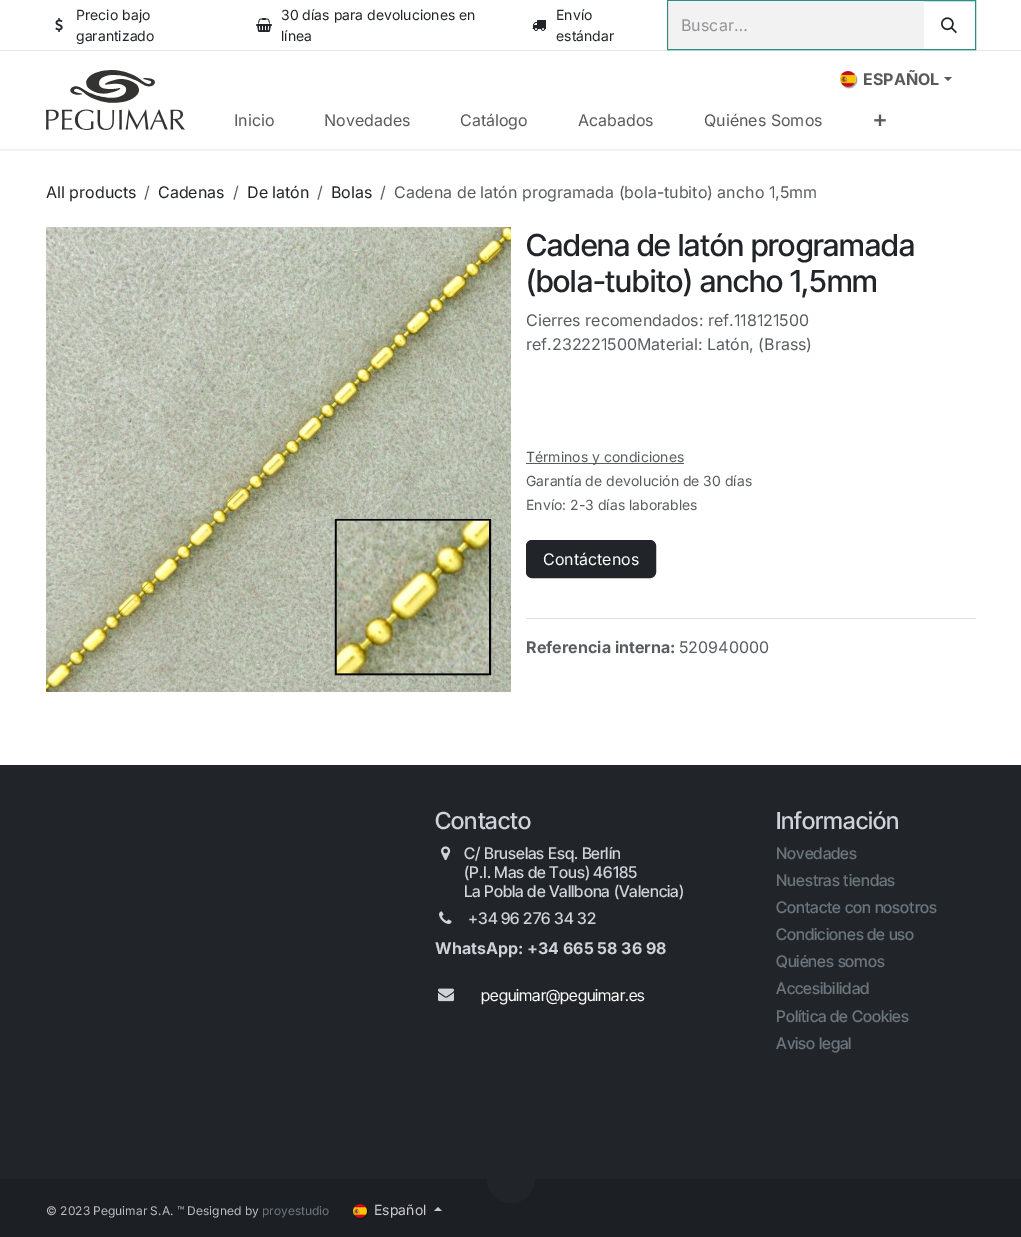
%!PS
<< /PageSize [1021 1237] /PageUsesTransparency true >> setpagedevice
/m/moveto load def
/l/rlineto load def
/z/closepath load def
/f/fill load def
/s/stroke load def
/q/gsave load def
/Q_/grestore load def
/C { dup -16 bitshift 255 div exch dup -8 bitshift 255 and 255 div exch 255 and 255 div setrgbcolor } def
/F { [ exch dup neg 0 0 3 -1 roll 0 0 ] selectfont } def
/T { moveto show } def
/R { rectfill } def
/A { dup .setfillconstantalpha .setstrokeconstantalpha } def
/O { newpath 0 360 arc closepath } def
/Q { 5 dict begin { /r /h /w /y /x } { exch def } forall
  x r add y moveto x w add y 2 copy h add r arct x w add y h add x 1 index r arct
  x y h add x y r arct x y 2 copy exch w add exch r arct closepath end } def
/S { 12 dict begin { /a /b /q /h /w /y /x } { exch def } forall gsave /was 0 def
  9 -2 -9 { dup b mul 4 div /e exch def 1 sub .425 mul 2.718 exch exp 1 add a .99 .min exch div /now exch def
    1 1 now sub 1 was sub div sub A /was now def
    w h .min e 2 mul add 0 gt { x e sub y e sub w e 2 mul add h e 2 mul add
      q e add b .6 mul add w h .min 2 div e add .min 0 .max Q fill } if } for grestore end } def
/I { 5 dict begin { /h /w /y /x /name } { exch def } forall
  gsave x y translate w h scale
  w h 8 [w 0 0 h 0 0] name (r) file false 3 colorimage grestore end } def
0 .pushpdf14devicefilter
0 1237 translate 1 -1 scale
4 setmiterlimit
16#FFFFFF C
0 0 1021 1237 R
q
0 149 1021 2 rectclip
16#000000 C
0 1 1021 149 0 1.5 .1 S
Q_
16#E6E6E6 C
0 50 1021 1 R
/Inter-Regular 14 F
16#212529 C
(Precio bajo) 76 20 T
(1.rgb) 55 18 8 14 I
(garantizado) 76 41 T
(30 días para devoluciones en) 281 20 T
(2.rgb) 256 18 16 14 I
(línea) 281 41 T
(Envío) 556 20 T
(3.rgb) 532 20 14 11 I
(estándar) 556 41 T
16#278F84 C
667.5 .5 308 49 rectstroke
16#F2F2F3 C
669 1 255 48 R
16#DEDEDF C
668 1 1 48 R
/Inter-Regular 16 F
16#909294 C
(Buscar…) 681 31 T
(4.rgb) 941 17 16 17 I
(5.rgb) 46 70 139 60 I
16#000000 C
841 72 16 16 8 .5 .43 S
(6.rgb) 840 71 16 16 I
/Inter-Bold 16 F
16#595959 C
(ESPAÑOL) 863 85 T
944 77 m 8 0 l -4 4 l z f
/Inter-Regular 16 F
(Inicio) 234 126 T
(Novedades) 324 126 T
(Catálogo) 460 126 T
(Acabados) 578 126 T
(Quiénes Somos) 704 126 T
(7.rgb) 874 114 12 12 I
16#212529 C
(All products) 46 198 T
16#595C5F C
(/) 144 198 T
16#212529 C
(Cadenas) 158 198 T
16#595C5F C
(/) 233 198 T
16#212529 C
(De latón) 247 198 T
16#595C5F C
(/) 317 198 T
16#212529 C
(Bolas) 331 198 T
16#595C5F C
(/) 380 198 T
(Cadena de latón programada \(bola-tubito\) ancho 1,5mm) 394 198 T
(8.rgb) 46 227 465 465 I
/InterTight-Medium 30.4 F
16#212529 C
(Cadena de latón programada) 526 256 T
(\(bola-tubito\) ancho 1,5mm) 526 292 T
/Inter-Regular 16 F
16#595C5F C
(Cierres recomendados: ref.118121500) 526 326 T
(ref.232221500Material: Latón, \(Brass\)) 526 350 T
526 463 158 1 R
/Inter-Regular 14 F
(Términos y condiciones) 526 462 T
(Garantía de devolución de 30 días) 526 486 T
(Envío: 2-3 días laborables) 526 510 T
16#212529 C
526.5 540.5 129 37 5.5 Q q f Q_
s
/Inter-Regular 16 F
16#FFFFFF C
(Contáctenos) 543 565 T
16#DEDEDF C
526 618 450 1 R
/Inter-Bold 16 F
16#595C5F C
(Referencia interna:) 526 653 T
/Inter-Regular 16 F
(520940000) 679 653 T
16#212529 C
0 765 1021 414 R
/InterTight-Medium 23.5 F
16#CED4DA C
(Contacto) 435 829 T
(9.rgb) 441 846 10 15 I
/InterTight-Medium 16 F
(C/ Bruselas Esq. Berlín) 464 859 T
(\(P.I. Mas de Tous\) 46185) 464 878 T
(La Pobla de Vallbona \(Valencia\)) 464 897 T
(10.rgb) 439 911 13 13 I
(+34 96 276 34 32) 468 924 T
/Inter-Bold 16 F
(WhatsApp: +34 665 58 36 98) 435 954 T
(11.rgb) 438 988 16 14 I
/InterTight-Regular 16 F
16#FFFFFF C
(peguimar@peguimar.es) 481 1001 T
/InterTight-Medium 23.5 F
16#CED4DA C
(Información) 776 829 T
/InterTight-Medium 16 F
16#6C757D C
(Novedades) 776 859 T
(Nuestras tiendas) 776 886 T
(Contacte con nosotros) 776 913 T
(Condiciones de uso) 776 940 T
(Quiénes somos) 776 967 T
(Accesibilidad) 776 994 T
(Política de Cookies) 776 1022 T
(Aviso legal) 776 1049 T
16#1C1F23 C
0 1179 1021 58 R
16#212529 C
511 1179 24 O f
/Inter-Regular 12 F
16#BBBCBD C
(© 2023 Peguimar S.A. ™ Designed by) 46 1215 T
16#6C757D C
(proyestudio) 262 1215 T
16#000000 C
354 1205 14 14 7 .5 .43 S
(12.rgb) 353 1204 14 14 I
/Inter-Regular 14 F
16#CCCCCC C
(Español) 374 1215 T
442 1211 m -8 0 l 4 -4 l z f
.poppdf14devicefilter showpage
